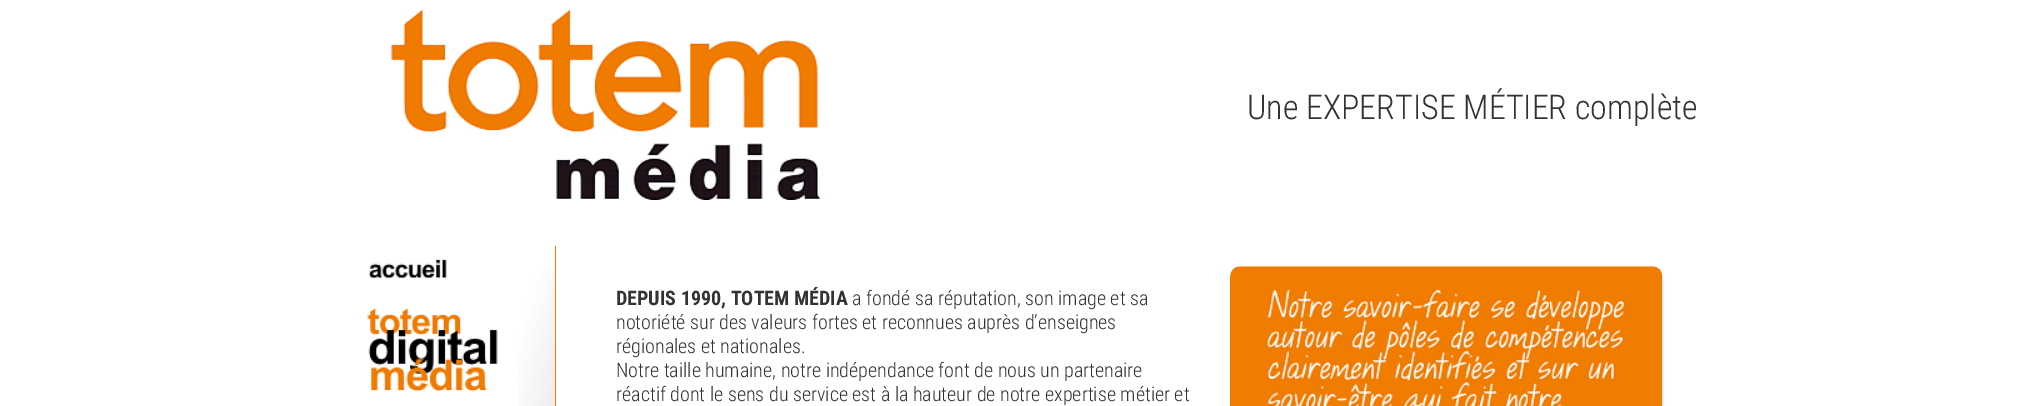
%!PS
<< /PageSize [2020 406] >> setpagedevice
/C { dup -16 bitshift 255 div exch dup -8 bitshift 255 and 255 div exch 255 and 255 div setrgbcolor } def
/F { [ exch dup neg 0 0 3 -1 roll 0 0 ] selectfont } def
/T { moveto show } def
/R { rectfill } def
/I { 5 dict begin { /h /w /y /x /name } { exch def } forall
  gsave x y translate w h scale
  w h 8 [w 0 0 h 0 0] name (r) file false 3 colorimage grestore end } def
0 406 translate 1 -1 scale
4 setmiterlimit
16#FFFFFF C
0 0 2020 406 R
(1.rgb) 391 10 429 190 I
/RobotoCondensed-Light 34 F
16#333333 C
(Une EXPERTISE MÉTIER complète) 1247 119 T
(2.rgb) 517 269 38 137 I
(3.rgb) 368 259 79 20 I
(4.rgb) 367 308 131 84 I
16#F07D02 C
555 246 1 160 R
/RobotoCondensed-Bold 20 F
16#333333 C
(DEPUIS 1990, TOTEM MÉDIA) 616 305 T
/RobotoCondensed-Light 20 F
(a fondé sa réputation, son image et sa) 852 305 T
(notoriété sur des valeurs fortes et reconnues auprès d’enseignes) 616 329 T
(régionales et nationales.) 616 353 T
(Notre taille humaine, notre indépendance font de nous un partenaire) 616 377 T
(réactif dont le sens du service est à la hauteur de notre expertise métier et) 616 401 T
(5.rgb) 1230 266 433 140 I
showpage
